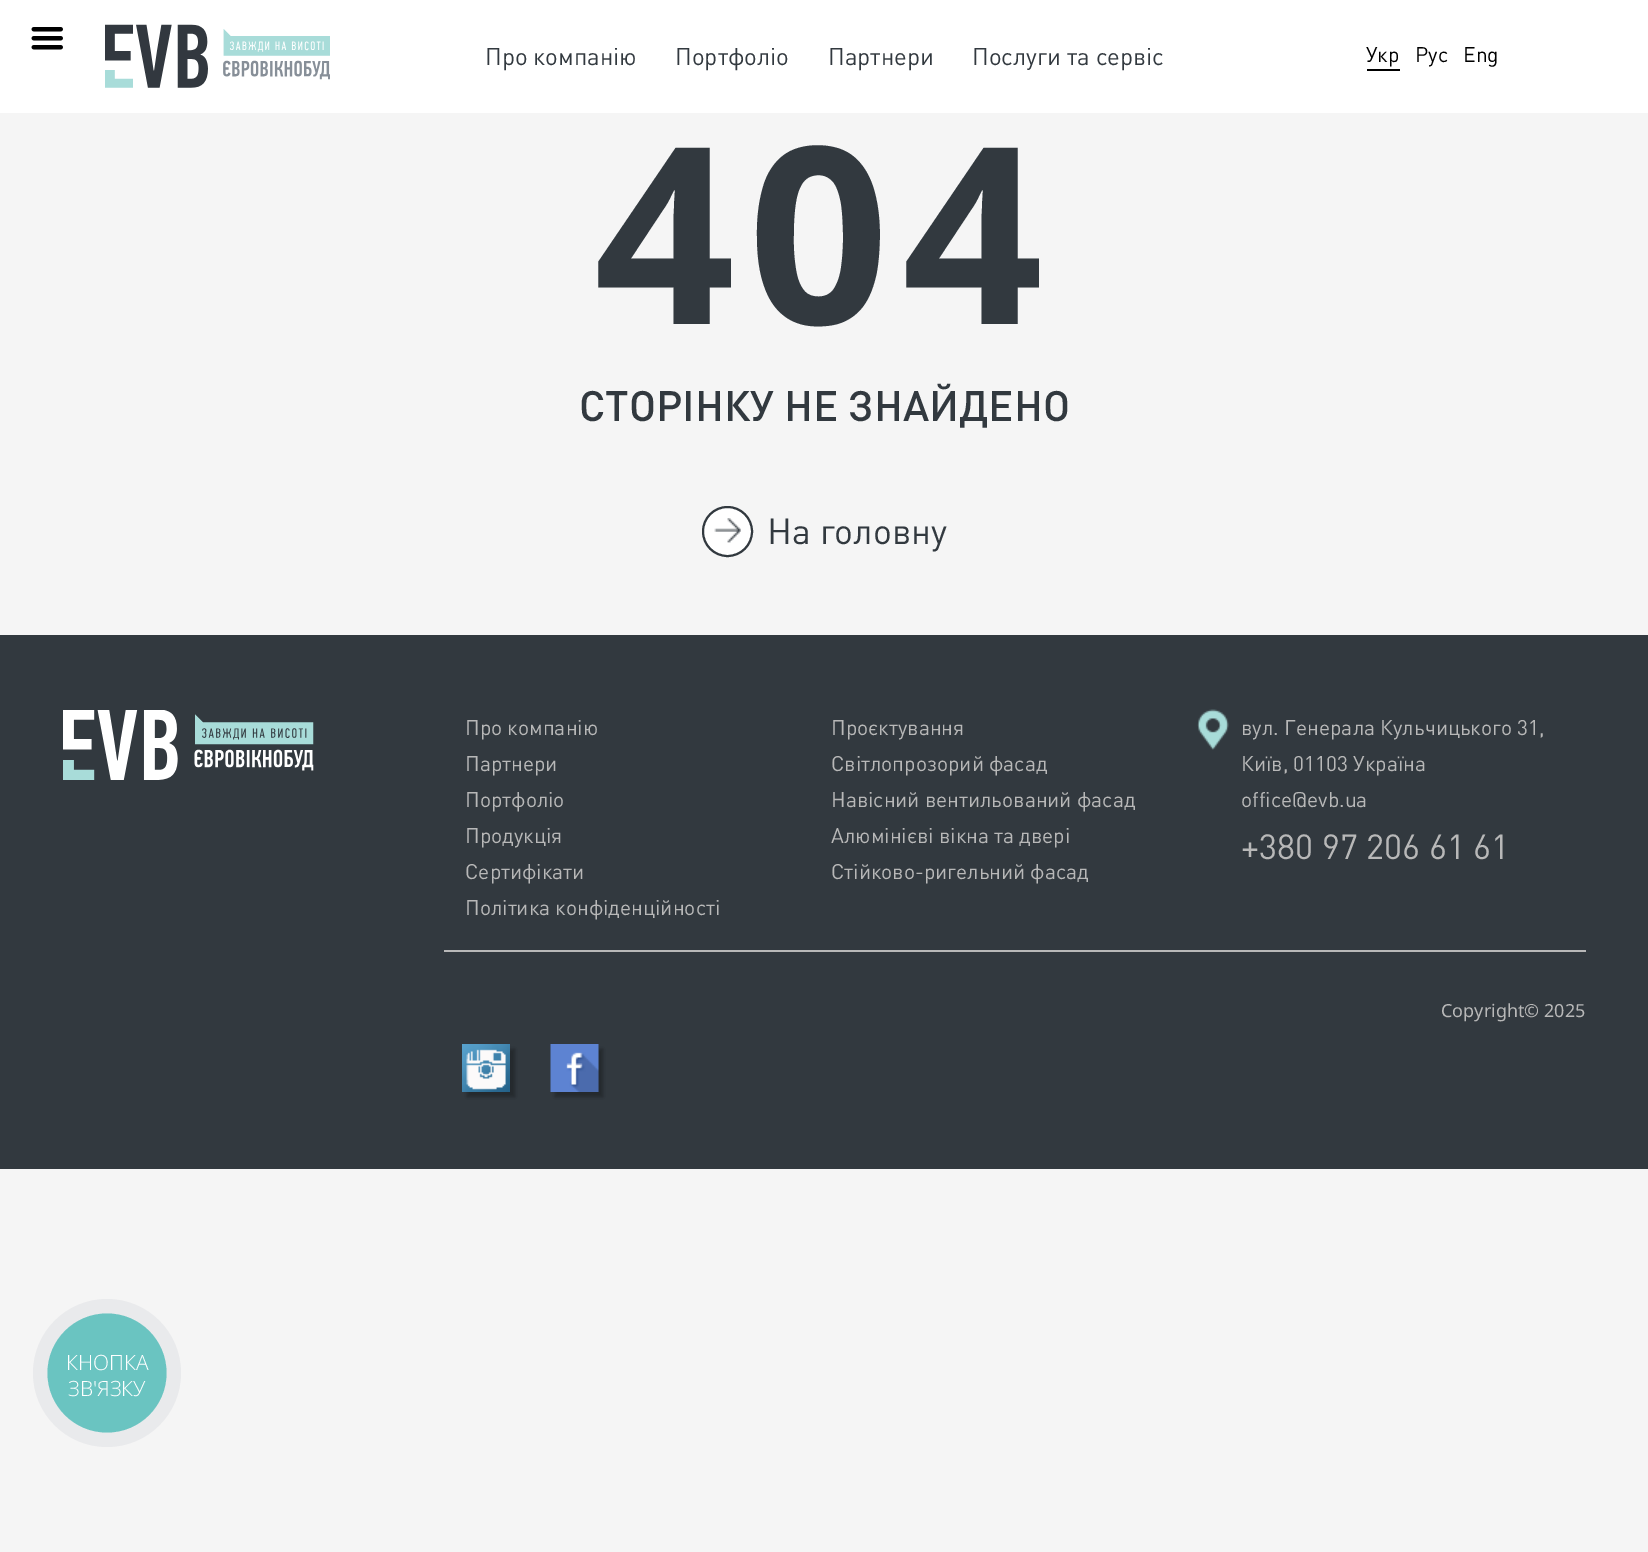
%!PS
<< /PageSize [1648 1552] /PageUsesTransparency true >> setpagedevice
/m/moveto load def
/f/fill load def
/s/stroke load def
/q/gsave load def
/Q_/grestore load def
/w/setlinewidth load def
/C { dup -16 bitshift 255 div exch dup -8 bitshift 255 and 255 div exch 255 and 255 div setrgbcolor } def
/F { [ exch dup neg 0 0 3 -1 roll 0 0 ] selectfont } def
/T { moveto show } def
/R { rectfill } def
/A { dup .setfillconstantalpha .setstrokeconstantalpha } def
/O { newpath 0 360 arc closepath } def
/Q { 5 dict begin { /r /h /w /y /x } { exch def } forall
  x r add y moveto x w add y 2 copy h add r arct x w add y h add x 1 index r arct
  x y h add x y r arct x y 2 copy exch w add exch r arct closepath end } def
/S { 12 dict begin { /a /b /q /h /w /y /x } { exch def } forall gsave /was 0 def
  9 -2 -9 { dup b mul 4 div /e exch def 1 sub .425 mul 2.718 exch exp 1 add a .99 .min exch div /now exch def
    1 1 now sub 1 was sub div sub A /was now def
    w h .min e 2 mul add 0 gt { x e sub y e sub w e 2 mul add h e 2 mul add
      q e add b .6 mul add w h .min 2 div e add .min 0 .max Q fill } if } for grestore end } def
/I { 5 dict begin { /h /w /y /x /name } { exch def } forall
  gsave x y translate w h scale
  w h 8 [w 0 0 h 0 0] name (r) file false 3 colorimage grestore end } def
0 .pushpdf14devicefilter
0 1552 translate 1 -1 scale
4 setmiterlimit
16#F5F5F5 C
0 0 1648 1552 R
16#FFFFFF C
0 0 1648 113 R
(1.rgb) 31 27 32 23 I
(2.rgb) 105 24 225 64 I
/DIN-Regular 24 F
16#32393F C
(Про компанію) 485 65 T
(Портфолiо) 675 65 T
(Партнери) 828 65 T
(Послуги та сервіс) 972 65 T
/DIN-Regular 21 F
16#000000 C
(Укр) 1366 62 T
1367 69 33 2 R
(Рус) 1415 62 T
(Eng) 1463 62 T
/NotoSans-Bold 247 F
16#32393F C
594 324 m 12.5 0 (404) ashow
/DIN-Medium 42 F
(СТОРІНКУ НЕ ЗНАЙДЕНО) 579 421 T
16#FFFFFF C
727.5 531.5 24.5 O q f Q_
16#32393F C
2 w
s
(3.rgb) 714 518 27 25 I
/DIN-Regular 35.75 F
(На головну) 767 544 T
0 635 1648 534 R
(4.rgb) 63 710 251 70 I
/DIN-Regular 21 F
16#B8B8B8 C
(Про компанію) 465 735 T
(Партнери) 465 771 T
(Портфолiо) 465 807 T
(Продукція) 465 843 T
(Сертифікати) 465 879 T
(Політика конфіденційності) 465 915 T
(Проєктування) 831 735 T
(Світлопрозорий фасад) 831 771 T
(Навісний вентильований фасад) 831 807 T
(Алюмінієві вікна та двері) 831 843 T
(Стійково-ригельний фасад) 831 879 T
(5.rgb) 1197 709 32 41 I
(вул. Генерала Кульчицького 31,) 1241 735 T
(Київ, 01103 Україна) 1241 771 T
(office@evb.ua) 1241 807 T
/DIN-Regular 34.5 F
(+380 97 206 61 61) 1241 859 T
444 950 1142 2 R
/NotoSans-Regular 18 F
(Copyright© 2025) 1441 1017 T
16#000000 C
467 1049 48 48 0 2 .3 S
(6.rgb) 462 1044 48 48 I
555 1049 48 48 0 2 .3 S
(7.rgb) 550 1044 49 48 I
16#E9EAEC C
107 1373 74 O f
16#6AC4C1 C
107 1373 59.5 O f
/OpenSans-Light 21 F
16#FFFFFF C
(КНОПКА) 66 1370 T
(ЗВ'ЯЗКУ) 68 1396 T
.poppdf14devicefilter showpage
